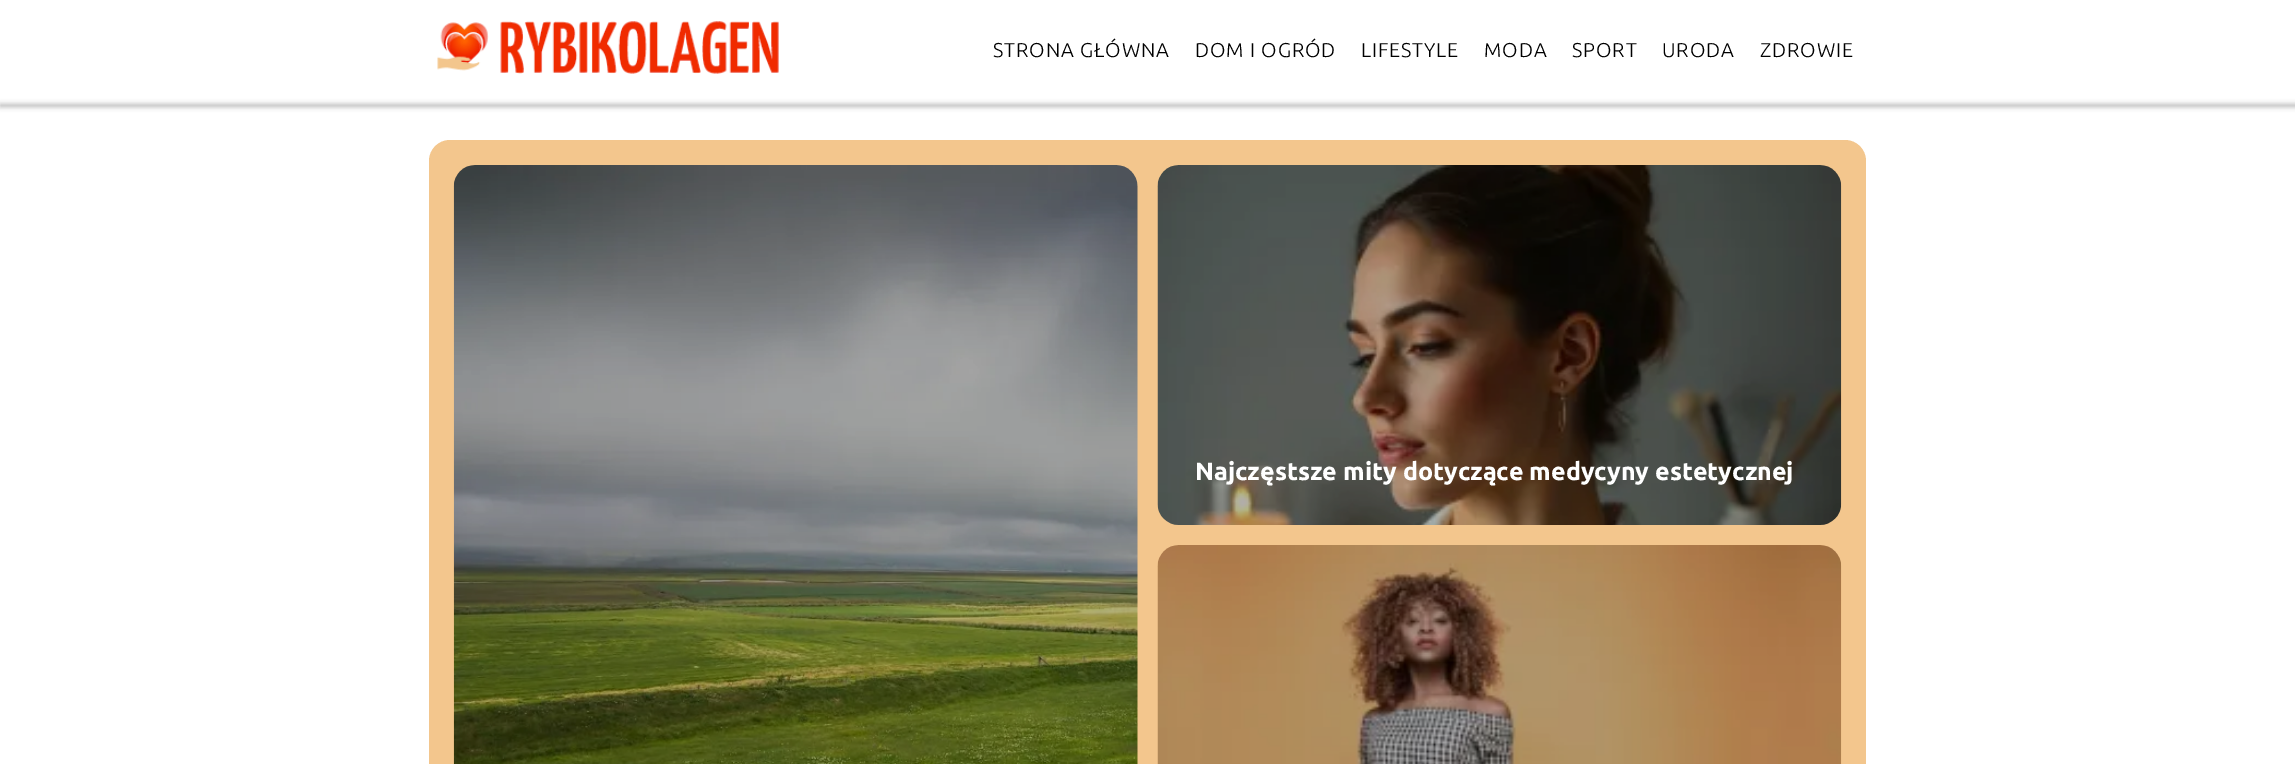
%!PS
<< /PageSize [2295 764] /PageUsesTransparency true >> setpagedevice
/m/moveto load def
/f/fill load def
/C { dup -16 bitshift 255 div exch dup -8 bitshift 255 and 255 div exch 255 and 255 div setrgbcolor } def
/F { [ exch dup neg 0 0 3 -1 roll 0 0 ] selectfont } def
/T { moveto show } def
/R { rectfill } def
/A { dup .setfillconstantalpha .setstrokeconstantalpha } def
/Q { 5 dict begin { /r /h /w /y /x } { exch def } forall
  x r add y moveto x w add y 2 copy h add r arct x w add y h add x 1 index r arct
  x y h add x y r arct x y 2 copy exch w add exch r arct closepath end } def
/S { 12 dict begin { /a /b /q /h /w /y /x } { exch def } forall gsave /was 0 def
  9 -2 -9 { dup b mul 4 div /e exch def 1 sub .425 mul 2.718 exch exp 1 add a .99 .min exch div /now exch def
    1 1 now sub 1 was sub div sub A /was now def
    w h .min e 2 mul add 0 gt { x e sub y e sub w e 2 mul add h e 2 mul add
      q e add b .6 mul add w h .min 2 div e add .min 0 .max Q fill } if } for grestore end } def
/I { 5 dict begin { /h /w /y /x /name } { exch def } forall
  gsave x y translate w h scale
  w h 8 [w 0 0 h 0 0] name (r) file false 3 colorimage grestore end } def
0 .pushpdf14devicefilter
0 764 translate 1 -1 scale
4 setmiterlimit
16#FFFFFF C
0 0 2295 764 R
(1.rgb) 437 21 342 53 I
/Ubuntu-Light 20 F
16#000000 C
993 57 m .9 0 (STRONA GŁÓWNA) ashow
1195 57 m .9 0 (DOM I OGRÓD) ashow
1361 57 m .9 0 (LIFESTYLE) ashow
1484 57 m .9 0 (MODA) ashow
1572 57 m .9 0 (SPORT) ashow
1662 57 m .9 0 (URODA) ashow
1760 57 m .9 0 (ZDROWIE) ashow
0 104 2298 3 0 2.5 .25 S
16#F3C68D C
429 140 1437 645 21 Q f
(2.rgb) 453 165 685 599 I
(3.rgb) 1157 165 685 360 I
/Ubuntu-Bold 25 F
16#FFFFFF C
(Najczęstsze mity dotyczące medycyny estetycznej) 1195 480 T
(4.rgb) 1157 545 685 219 I
.poppdf14devicefilter showpage
